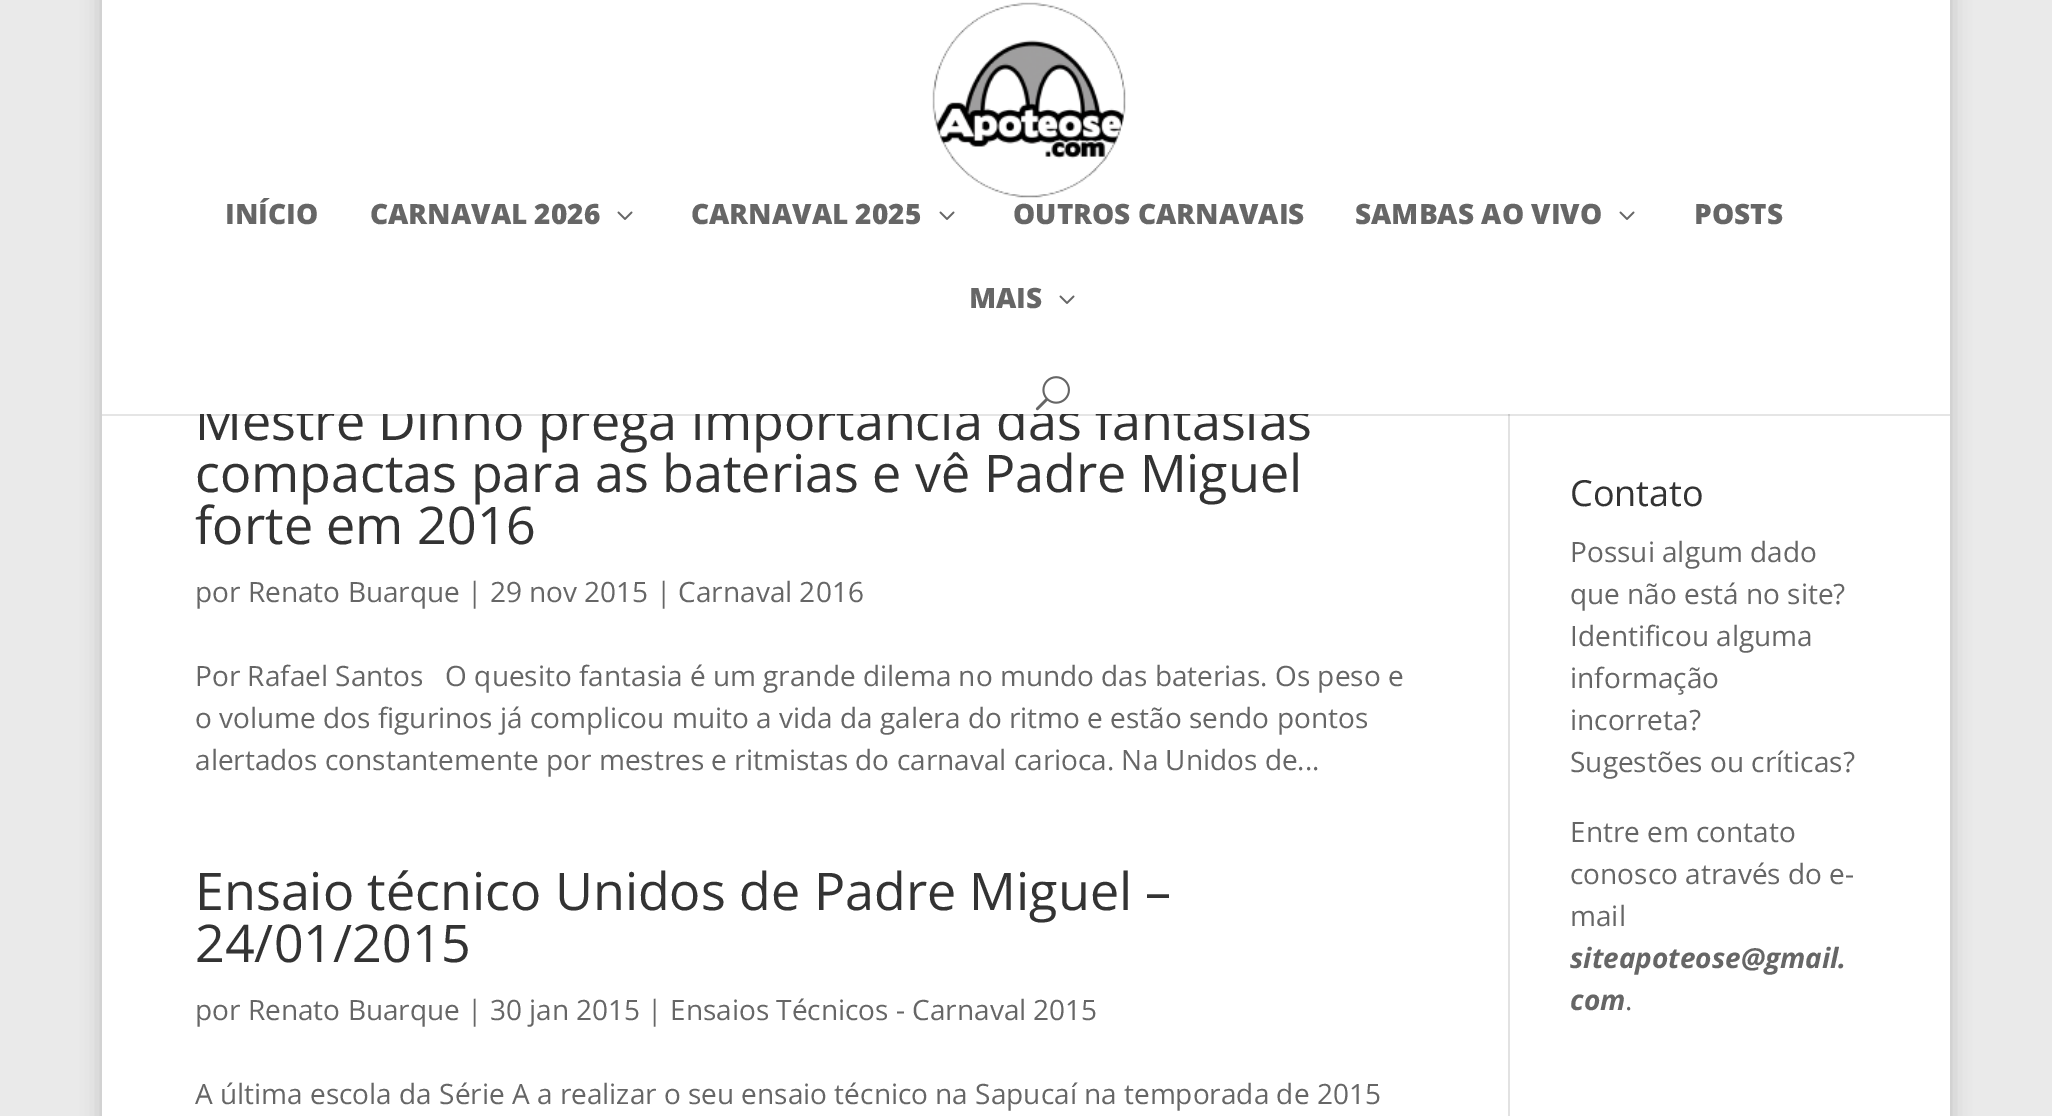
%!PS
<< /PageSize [2052 1116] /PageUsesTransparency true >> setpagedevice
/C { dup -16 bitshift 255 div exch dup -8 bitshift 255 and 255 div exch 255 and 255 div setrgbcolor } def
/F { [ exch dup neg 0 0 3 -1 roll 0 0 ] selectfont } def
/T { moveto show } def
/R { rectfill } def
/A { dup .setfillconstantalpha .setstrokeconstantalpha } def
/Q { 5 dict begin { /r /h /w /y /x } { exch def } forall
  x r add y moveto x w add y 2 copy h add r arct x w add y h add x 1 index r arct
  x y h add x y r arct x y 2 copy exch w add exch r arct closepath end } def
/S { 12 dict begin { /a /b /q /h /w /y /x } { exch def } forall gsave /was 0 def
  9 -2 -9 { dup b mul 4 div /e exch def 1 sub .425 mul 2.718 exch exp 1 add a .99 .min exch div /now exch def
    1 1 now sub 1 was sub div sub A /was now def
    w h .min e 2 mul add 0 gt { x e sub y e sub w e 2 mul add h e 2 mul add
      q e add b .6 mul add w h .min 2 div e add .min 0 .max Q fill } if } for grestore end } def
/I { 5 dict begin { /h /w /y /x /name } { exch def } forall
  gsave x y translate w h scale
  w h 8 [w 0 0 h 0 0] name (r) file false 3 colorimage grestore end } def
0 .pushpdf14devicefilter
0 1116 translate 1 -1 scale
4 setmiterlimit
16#EAEAEA C
0 0 2052 1116 R
16#000000 C
102 -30 1848 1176 0 10 .2 S
16#FFFFFF C
102 414 1848 702 R
16#E2E2E2 C
1508 414 2 702 R
0.1 A
16#000000 C
102 414 1848 2 R
/OpenSans-Regular 52 F
1 A
16#333333 C
(Mestre Dinho prega importância das fantasias) 195 440 T
16#FFFFFF C
102 0 1848 414 R
(1.rgb) 932 2 194 196 I
/OpenSans-ExtraBold 28 F
16#666666 C
(INÍCIO) 225 224 T
(CARNAVAL 2026) 370 224 T
(2.rgb) 617 211 16 9 I
(CARNAVAL 2025) 691 224 T
(2.rgb) 939 211 16 9 I
(OUTROS CARNAVAIS) 1013 224 T
(SAMBAS AO VIVO) 1355 224 T
(2.rgb) 1619 211 16 9 I
(POSTS) 1694 224 T
(MAIS) 969 308 T
(2.rgb) 1059 295 16 9 I
(3.rgb) 1035 376 35 35 I
/OpenSans-Regular 52 F
16#333333 C
(compactas para as baterias e vê Padre Miguel) 195 492 T
(forte em 2016) 195 544 T
/OpenSans-Regular 28 F
16#666666 C
(por Renato Buarque | 29 nov 2015 | Carnaval 2016) 195 602 T
(Por Rafael Santos   O quesito fantasia é um grande dilema no mundo das baterias. Os peso e) 195 686 T
(o volume dos figurinos já complicou muito a vida da galera do ritmo e estão sendo pontos) 195 728 T
(alertados constantemente por mestres e ritmistas do carnaval carioca. Na Unidos de...) 195 770 T
/OpenSans-Regular 52 F
16#333333 C
(Ensaio técnico Unidos de Padre Miguel –) 195 910 T
(24/01/2015) 195 962 T
/OpenSans-Regular 28 F
16#666666 C
(por Renato Buarque | 30 jan 2015 | Ensaios Técnicos - Carnaval 2015) 195 1020 T
(A última escola da Série A a realizar o seu ensaio técnico na Sapucaí na temporada de 2015) 195 1104 T
/OpenSans-Regular 36 F
16#333333 C
(Contato) 1570 506 T
/OpenSans-Regular 28 F
16#666666 C
(Possui algum dado) 1570 562 T
(que não está no site?) 1570 604 T
(Identificou alguma) 1570 646 T
(informação) 1570 688 T
(incorreta?) 1570 730 T
(Sugestões ou críticas?) 1570 772 T
(Entre em contato) 1570 842 T
(conosco através do e-) 1570 884 T
(mail) 1570 926 T
/OpenSans-BoldItalic 28 F
(siteapoteose@gmail.) 1570 968 T
(com) 1570 1010 T
/OpenSans-Regular 28 F
(.) 1625 1010 T
.poppdf14devicefilter showpage
